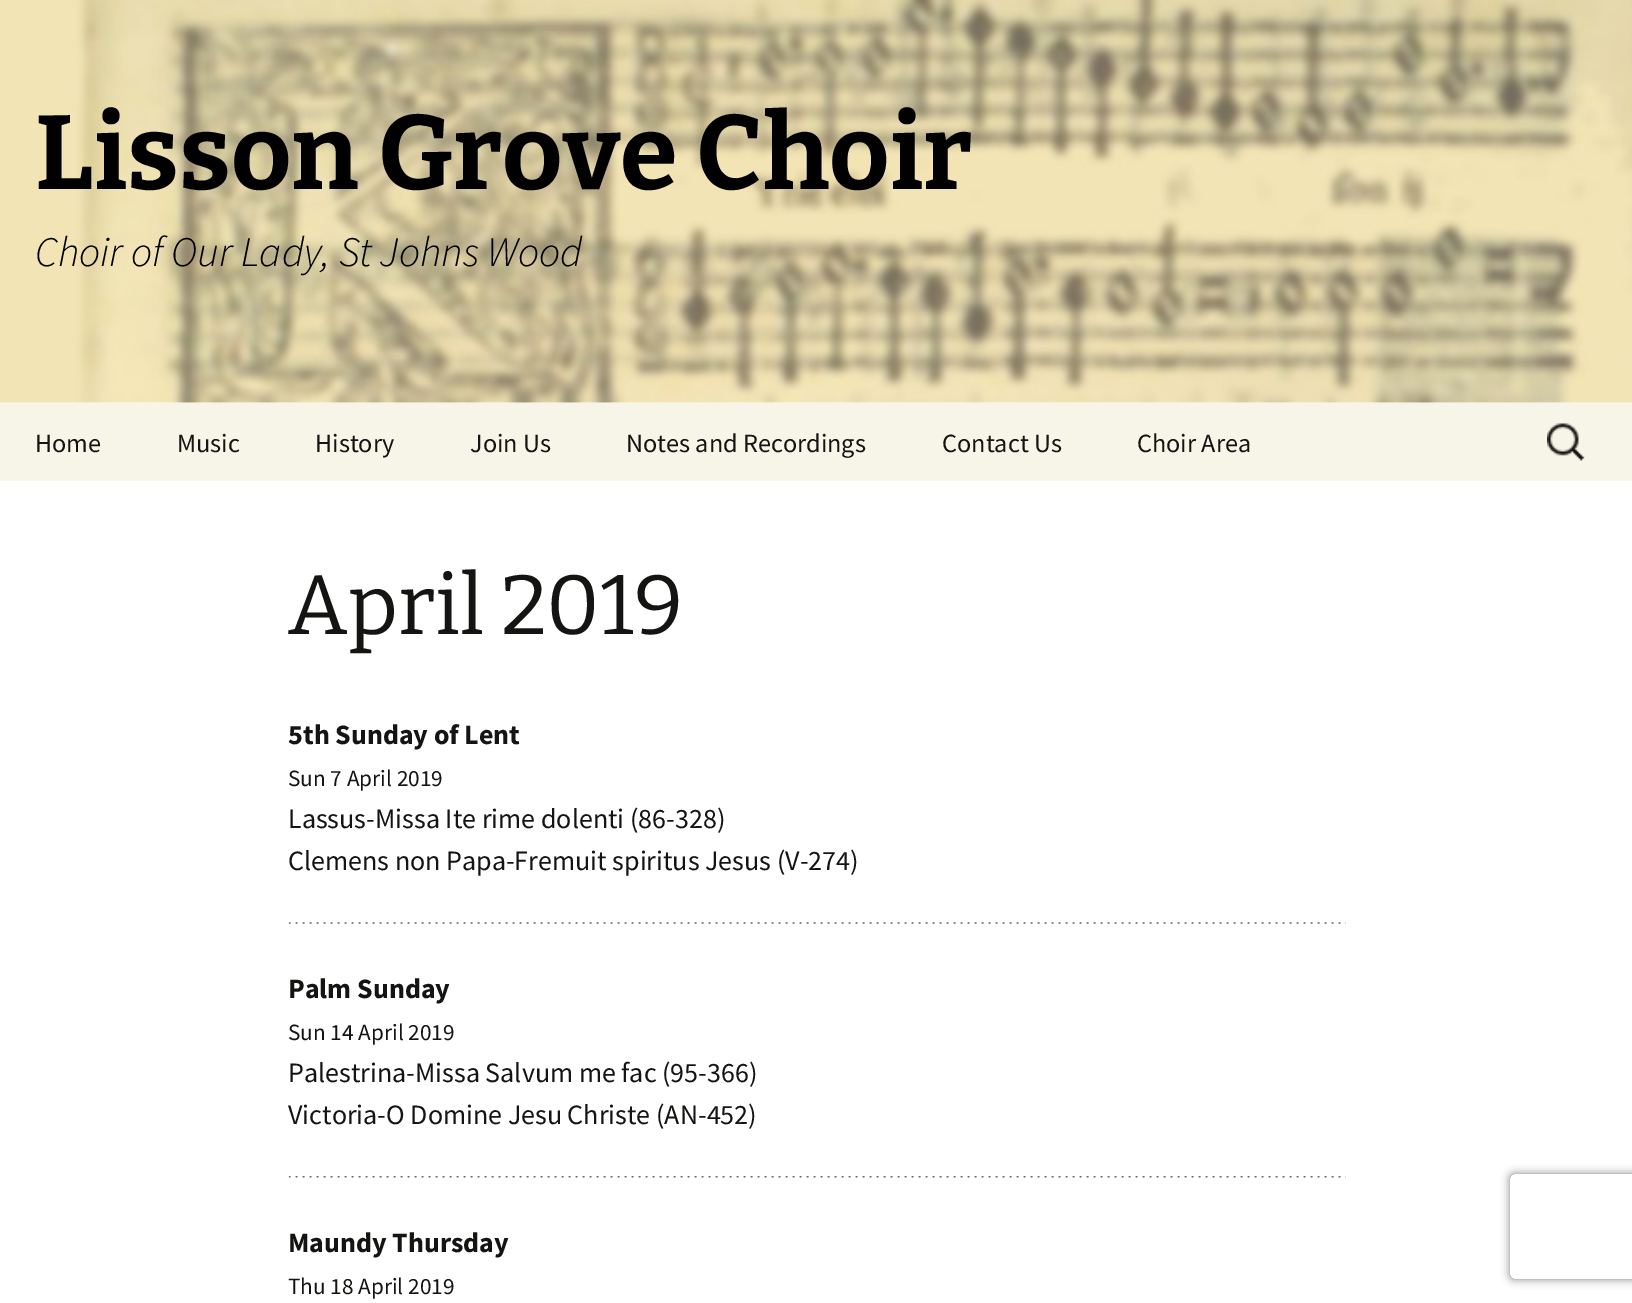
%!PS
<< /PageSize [1632 1303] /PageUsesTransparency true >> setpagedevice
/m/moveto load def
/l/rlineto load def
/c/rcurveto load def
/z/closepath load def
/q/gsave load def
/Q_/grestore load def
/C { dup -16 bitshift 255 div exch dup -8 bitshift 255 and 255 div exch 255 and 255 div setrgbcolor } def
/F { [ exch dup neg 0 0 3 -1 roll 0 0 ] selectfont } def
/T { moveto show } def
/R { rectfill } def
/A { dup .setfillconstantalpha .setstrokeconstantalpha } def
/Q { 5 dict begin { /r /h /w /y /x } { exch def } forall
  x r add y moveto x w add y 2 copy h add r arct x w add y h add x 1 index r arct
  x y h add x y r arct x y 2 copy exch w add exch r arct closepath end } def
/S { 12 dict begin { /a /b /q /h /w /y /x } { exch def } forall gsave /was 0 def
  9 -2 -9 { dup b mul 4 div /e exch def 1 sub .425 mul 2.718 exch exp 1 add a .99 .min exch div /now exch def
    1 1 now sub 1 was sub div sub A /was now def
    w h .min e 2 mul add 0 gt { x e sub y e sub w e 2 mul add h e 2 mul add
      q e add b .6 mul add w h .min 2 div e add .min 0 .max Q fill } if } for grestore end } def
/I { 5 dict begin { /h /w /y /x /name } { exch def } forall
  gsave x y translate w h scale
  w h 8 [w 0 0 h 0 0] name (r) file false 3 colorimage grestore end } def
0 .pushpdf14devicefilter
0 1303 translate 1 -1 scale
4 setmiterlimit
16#FFFFFF C
0 0 1632 1303 R
(1.rgb) 0 0 1632 403 I
/Bitter-Bold 105 F
16#000000 C
(Lisson Grove Choir) 35 189 T
/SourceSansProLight-LightItalic 42 F
(Choir of Our Lady, St Johns Wood) 35 266 T
16#F7F5E7 C
0 403 1632 78 R
/SourceSansPro-Regular 26.25 F
16#141412 C
(Home) 35 452 T
(Music) 177 452 T
(History) 315 452 T
(Join Us) 470 452 T
(Notes and Recordings) 626 452 T
(Contact Us) 942 452 T
(Choir Area) 1137 452 T
(2.rgb) 1547 423 38 38 I
/Bitter-Regular 84 F
(April 2019) 288 634 T
/SourceSansPro-Bold 28 F
(5th Sunday of Lent) 288 744 T
/SourceSansPro-Regular 23.25 F
(Sun 7 April 2019) 288 786 T
/SourceSansPro-Regular 28 F
(Lassus-Missa Ite rime dolenti \(86-328\)) 288 828 T
(Clemens non Papa-Fremuit spiritus Jesus \(V-274\)) 288 870 T
(3.rgb) 288 922 1058 2 I
/SourceSansPro-Bold 28 F
(Palm Sunday) 288 998 T
/SourceSansPro-Regular 23.25 F
(Sun 14 April 2019) 288 1040 T
/SourceSansPro-Regular 28 F
(Palestrina-Missa Salvum me fac \(95-366\)) 288 1082 T
(Victoria-O Domine Jesu Christe \(AN-452\)) 288 1124 T
(4.rgb) 288 1176 1058 2 I
/SourceSansPro-Bold 28 F
(Maundy Thursday) 288 1252 T
/SourceSansPro-Regular 23.25 F
(Thu 18 April 2019) 288 1294 T
q
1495 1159 m 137 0 l 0 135 l -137 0 l z 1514 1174 m 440 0 l 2 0 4 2 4 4 c 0 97 l 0 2 -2 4 -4 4 c -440 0 l -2 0 -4 -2 -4 -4 c 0 -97 l 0 -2 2 -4 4 -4 c z eoclip newpath
16#808080 C
1510 1174 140 105 4 4.5 1 S
Q_
.poppdf14devicefilter showpage
